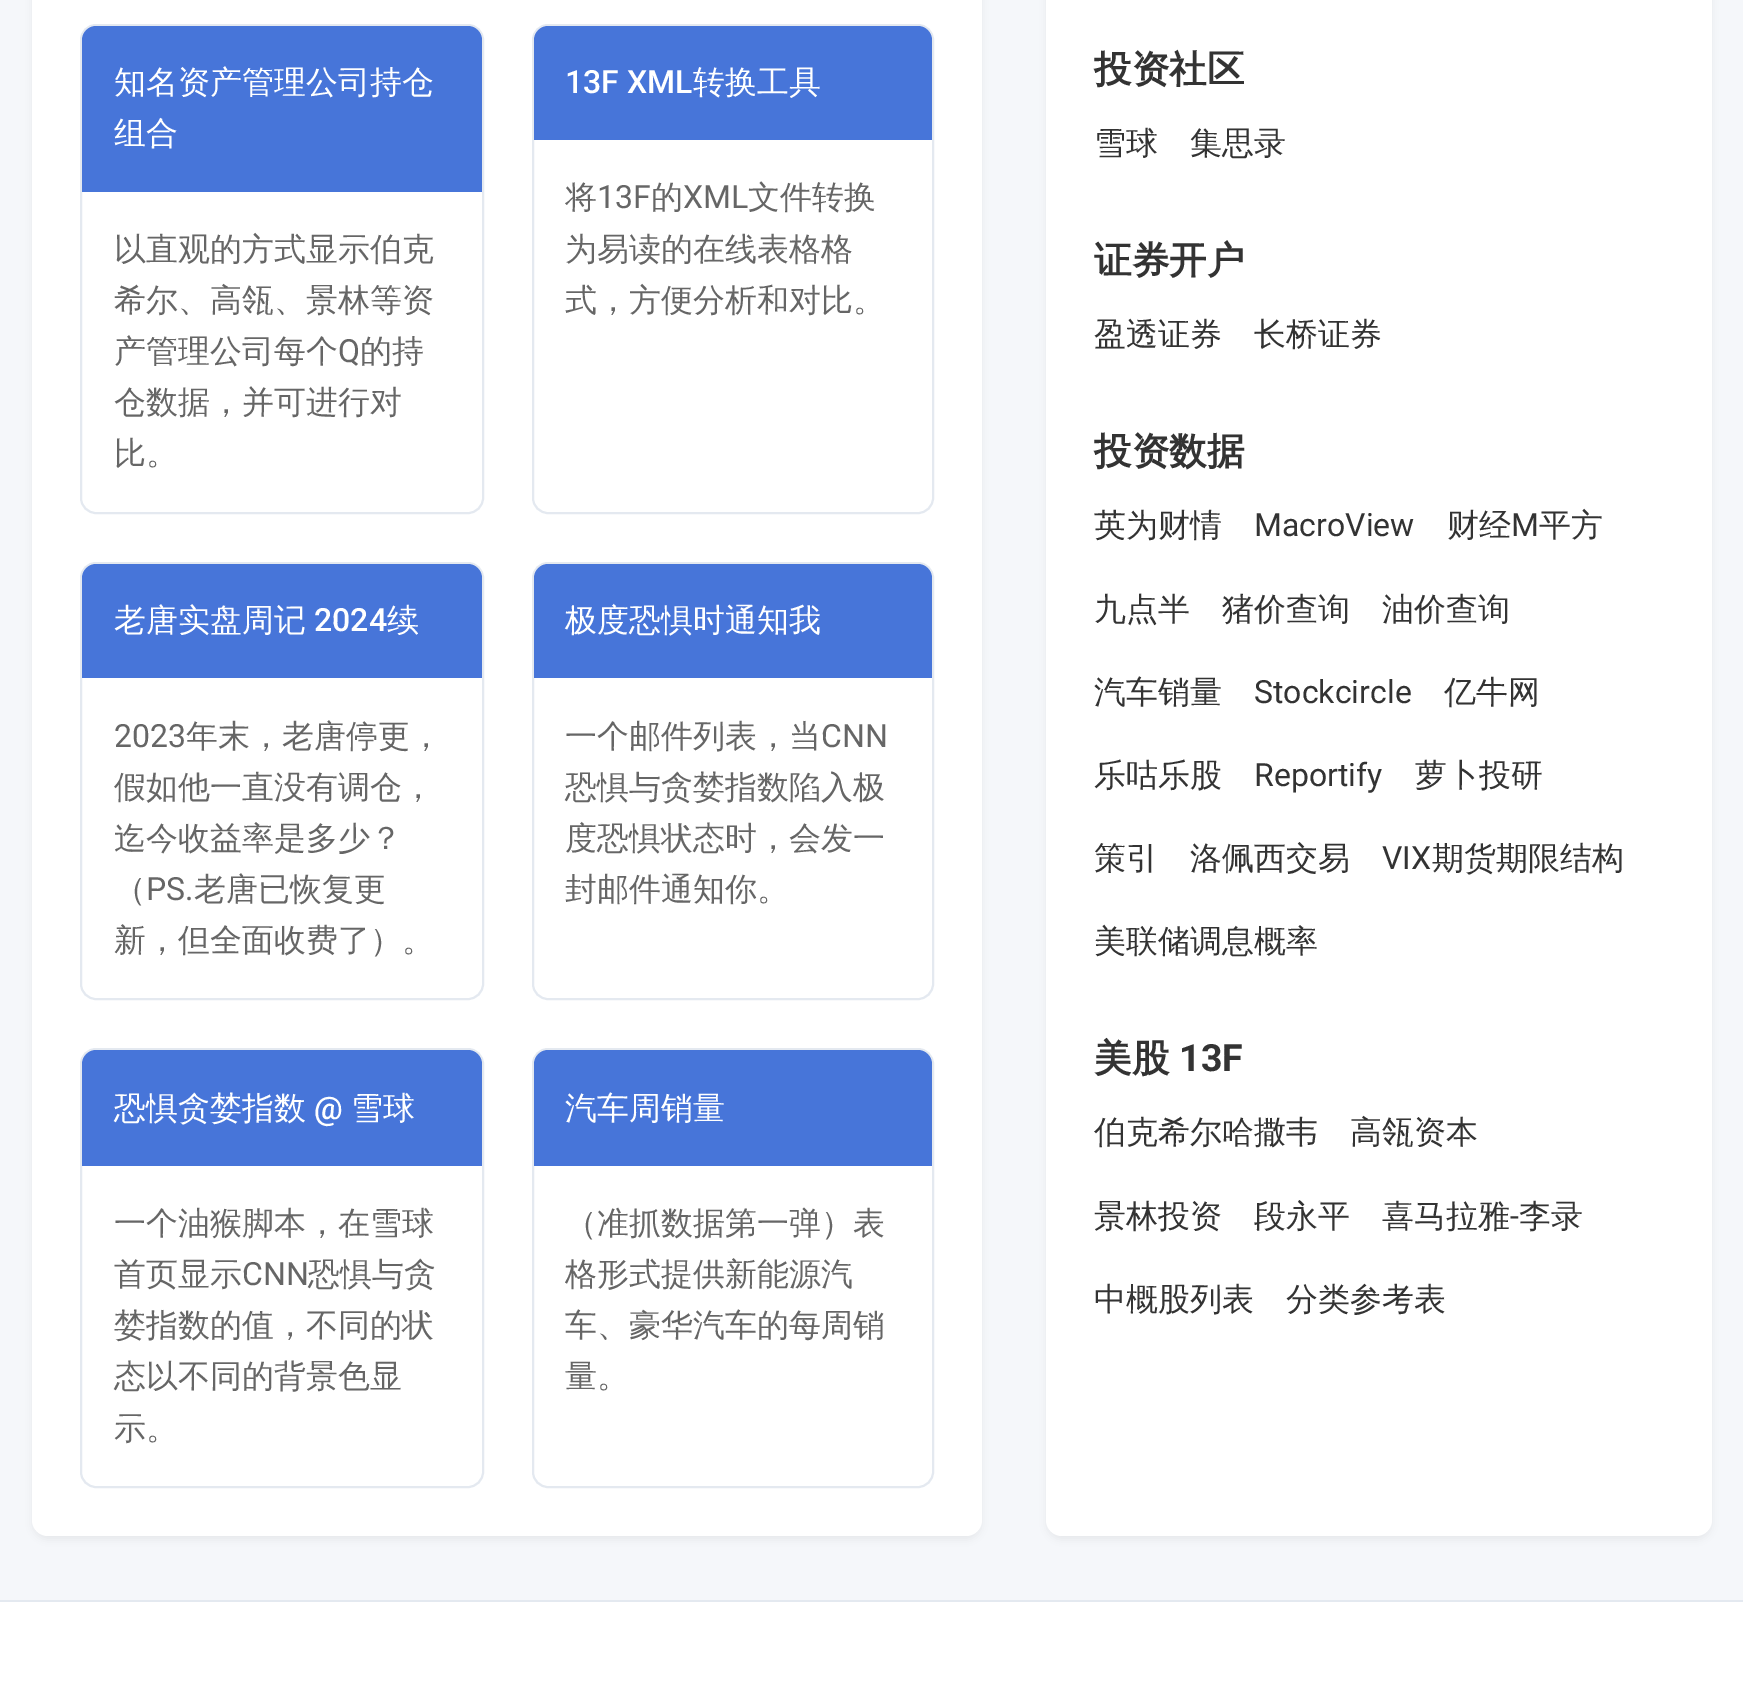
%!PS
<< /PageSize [1743 1690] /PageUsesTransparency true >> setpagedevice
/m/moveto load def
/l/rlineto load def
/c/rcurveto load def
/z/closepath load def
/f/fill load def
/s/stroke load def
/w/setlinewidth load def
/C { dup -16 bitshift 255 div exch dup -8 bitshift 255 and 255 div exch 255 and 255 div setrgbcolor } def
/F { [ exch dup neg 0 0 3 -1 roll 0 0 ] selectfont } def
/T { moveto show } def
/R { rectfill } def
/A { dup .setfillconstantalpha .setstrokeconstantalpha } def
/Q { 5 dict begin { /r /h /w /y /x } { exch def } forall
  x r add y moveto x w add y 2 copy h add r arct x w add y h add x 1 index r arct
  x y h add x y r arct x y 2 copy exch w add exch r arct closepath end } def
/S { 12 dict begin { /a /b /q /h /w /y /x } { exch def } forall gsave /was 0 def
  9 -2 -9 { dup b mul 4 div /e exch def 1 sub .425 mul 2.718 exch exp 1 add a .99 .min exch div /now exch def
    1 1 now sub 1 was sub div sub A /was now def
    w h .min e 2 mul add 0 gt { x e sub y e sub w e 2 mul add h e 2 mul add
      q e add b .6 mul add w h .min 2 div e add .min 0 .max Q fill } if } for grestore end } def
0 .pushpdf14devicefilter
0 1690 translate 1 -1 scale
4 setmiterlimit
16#F5F7FA C
0 0 1743 1690 R
16#000000 C
32 -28 950 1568 16 4 .05 S
16#FFFFFF C
32 -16 950 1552 16 Q f
16#E4E9F0 C
2 w
81 25 402 488 15 Q s
16#4775D9 C
96 26 m 372 0 l 7.5 0 14 6.5 14 14 c 0 152 l -400 0 l 0 -152 l 0 -7.5 6.5 -14 14 -14 c z f
/WenQuanYiZenHei-Medium 32 F
16#FFFFFF C
(知名资产管理公司持仓) 114 93 T
(组合) 114 144 T
16#666666 C
(以直观的方式显示伯克) 114 260 T
(希尔、高瓴、景林等资) 114 311 T
(产管理公司每个) 114 362 T
/Roboto-Regular 32 F
(Q) 338 362 T
/WenQuanYiZenHei-Medium 32 F
(的持) 360 362 T
(仓数据，并可进行对) 114 413 T
(比。) 114 464 T
16#E4E9F0 C
533 25 400 488 15 Q s
16#4775D9 C
548 26 m 370 0 l 7.5 0 14 6.5 14 14 c 0 100 l -398 0 l 0 -100 l 0 -7.5 6.5 -14 14 -14 c z f
/Roboto-Medium 32 F
16#FFFFFF C
(13F XML) 565 93 T
/WenQuanYiZenHei-Medium 32 F
(转换工具) 693 93 T
16#666666 C
(将) 565 208 T
/Roboto-Regular 32 F
(13F) 597 208 T
/WenQuanYiZenHei-Medium 32 F
(的) 651 208 T
/Roboto-Regular 32 F
(XML) 683 208 T
/WenQuanYiZenHei-Medium 32 F
(文件转换) 748 208 T
(为易读的在线表格格) 565 260 T
(式，方便分析和对比。) 565 311 T
16#E4E9F0 C
81 563 402 436 15 Q s
16#4775D9 C
96 564 m 372 0 l 7.5 0 14 6.5 14 14 c 0 100 l -400 0 l 0 -100 l 0 -7.5 6.5 -14 14 -14 c z f
16#FFFFFF C
(老唐实盘周记) 114 631 T
/Roboto-Medium 32 F
(2024) 314 631 T
/WenQuanYiZenHei-Medium 32 F
(续) 387 631 T
/Roboto-Regular 32 F
16#666666 C
(2023) 114 747 T
/WenQuanYiZenHei-Medium 32 F
(年末，老唐停更，) 186 747 T
(假如他一直没有调仓，) 114 798 T
(迄今收益率是多少？) 114 849 T
(（) 114 900 T
/Roboto-Regular 32 F
(PS.) 146 900 T
/WenQuanYiZenHei-Medium 32 F
(老唐已恢复更) 194 900 T
(新，但全面收费了）。) 114 951 T
16#E4E9F0 C
533 563 400 436 15 Q s
16#4775D9 C
548 564 m 370 0 l 7.5 0 14 6.5 14 14 c 0 100 l -398 0 l 0 -100 l 0 -7.5 6.5 -14 14 -14 c z f
16#FFFFFF C
(极度恐惧时通知我) 565 631 T
16#666666 C
(一个邮件列表，当) 565 747 T
/Roboto-Regular 32 F
(CNN) 821 747 T
/WenQuanYiZenHei-Medium 32 F
(恐惧与贪婪指数陷入极) 565 798 T
(度恐惧状态时，会发一) 565 849 T
(封邮件通知你。) 565 900 T
16#E4E9F0 C
81 1049 402 438 15 Q s
16#4775D9 C
96 1050 m 372 0 l 7.5 0 14 6.5 14 14 c 0 102 l -400 0 l 0 -102 l 0 -7.5 6.5 -14 14 -14 c z f
16#FFFFFF C
(恐惧贪婪指数) 114 1119 T
/Roboto-Medium 32 F
(@) 314 1119 T
/WenQuanYiZenHei-Medium 32 F
(雪球) 351 1119 T
16#666666 C
(一个油猴脚本，在雪球) 114 1234 T
(首页显示) 114 1285 T
/Roboto-Regular 32 F
(CNN) 242 1285 T
/WenQuanYiZenHei-Medium 32 F
(恐惧与贪) 308 1285 T
(婪指数的值，不同的状) 114 1336 T
(态以不同的背景色显) 114 1387 T
(示。) 114 1439 T
16#E4E9F0 C
533 1049 400 438 15 Q s
16#4775D9 C
548 1050 m 370 0 l 7.5 0 14 6.5 14 14 c 0 102 l -398 0 l 0 -102 l 0 -7.5 6.5 -14 14 -14 c z f
16#FFFFFF C
(汽车周销量) 565 1119 T
16#666666 C
(（准抓数据第一弹）表) 565 1234 T
(格形式提供新能源汽) 565 1285 T
(车、豪华汽车的每周销) 565 1336 T
(量。) 565 1387 T
16#000000 C
1046 -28 666 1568 16 4 .05 S
16#FFFFFF C
1046 -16 666 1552 16 Q f
/WenQuanYiZenHei-Bold 37.5 F
16#333333 C
(投资社区) 1094 82 T
/WenQuanYiZenHei-Medium 32 F
(雪球) 1094 154 T
(集思录) 1190 154 T
/WenQuanYiZenHei-Bold 37.5 F
(证券开户) 1094 273 T
/WenQuanYiZenHei-Medium 32 F
(盈透证券) 1094 345 T
(长桥证券) 1254 345 T
/WenQuanYiZenHei-Bold 37.5 F
(投资数据) 1094 464 T
/WenQuanYiZenHei-Medium 32 F
(英为财情) 1094 536 T
/Roboto-Regular 32 F
(MacroView) 1254 536 T
/WenQuanYiZenHei-Medium 32 F
(财经) 1447 536 T
/Roboto-Regular 32 F
(M) 1511 536 T
/WenQuanYiZenHei-Medium 32 F
(平方) 1539 536 T
(九点半) 1094 620 T
(猪价查询) 1222 620 T
(油价查询) 1382 620 T
(汽车销量) 1094 703 T
/Roboto-Regular 32 F
(Stockcircle) 1254 703 T
/WenQuanYiZenHei-Medium 32 F
(亿牛网) 1444 703 T
(乐咕乐股) 1094 786 T
/Roboto-Regular 32 F
(Reportify) 1254 786 T
/WenQuanYiZenHei-Medium 32 F
(萝卜投研) 1415 786 T
(策引) 1094 869 T
(洛佩西交易) 1190 869 T
/Roboto-Regular 32 F
(VIX) 1382 869 T
/WenQuanYiZenHei-Medium 32 F
(期货期限结构) 1432 869 T
(美联储调息概率) 1094 952 T
/WenQuanYiZenHei-Bold 37.5 F
(美股) 1094 1071 T
/Roboto-Bold 37.5 F
(13F) 1179 1071 T
/WenQuanYiZenHei-Medium 32 F
(伯克希尔哈撒韦) 1094 1143 T
(高瓴资本) 1350 1143 T
(景林投资) 1094 1227 T
(段永平) 1254 1227 T
(喜马拉雅) 1382 1227 T
/Roboto-Regular 32 F
(-) 1510 1227 T
/WenQuanYiZenHei-Medium 32 F
(李录) 1519 1227 T
(中概股列表) 1094 1310 T
(分类参考表) 1286 1310 T
16#FFFFFF C
0 1602 1743 88 R
16#E4E9F0 C
0 1600 1743 2 R
.poppdf14devicefilter showpage
